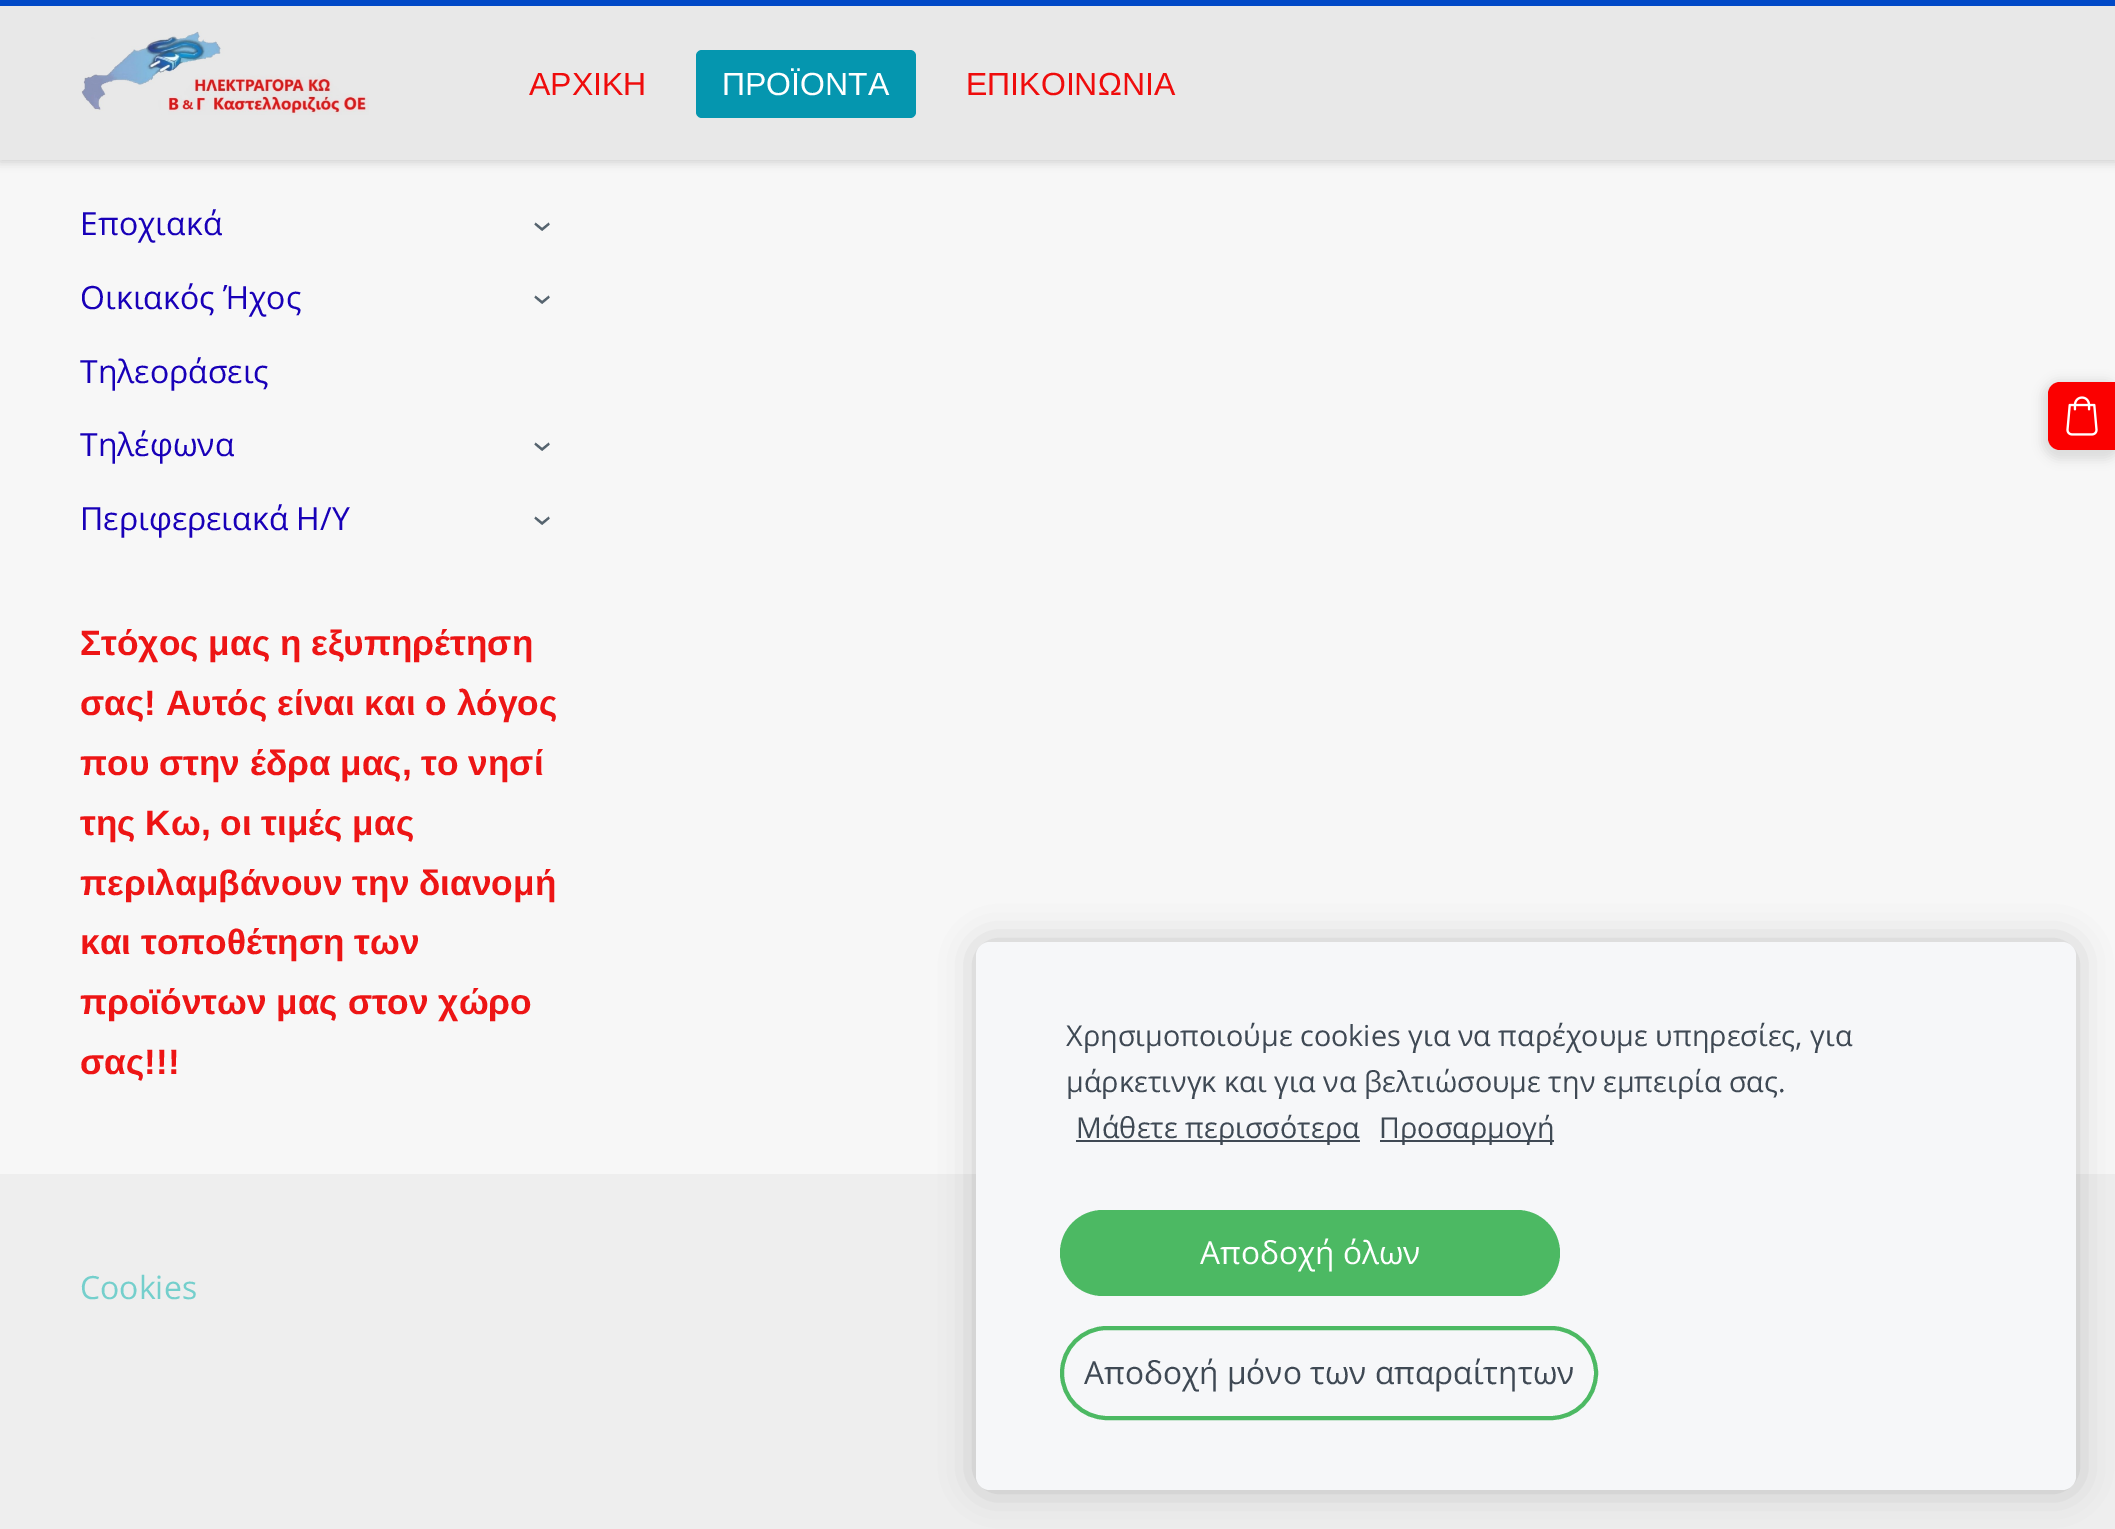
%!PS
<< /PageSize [2115 1529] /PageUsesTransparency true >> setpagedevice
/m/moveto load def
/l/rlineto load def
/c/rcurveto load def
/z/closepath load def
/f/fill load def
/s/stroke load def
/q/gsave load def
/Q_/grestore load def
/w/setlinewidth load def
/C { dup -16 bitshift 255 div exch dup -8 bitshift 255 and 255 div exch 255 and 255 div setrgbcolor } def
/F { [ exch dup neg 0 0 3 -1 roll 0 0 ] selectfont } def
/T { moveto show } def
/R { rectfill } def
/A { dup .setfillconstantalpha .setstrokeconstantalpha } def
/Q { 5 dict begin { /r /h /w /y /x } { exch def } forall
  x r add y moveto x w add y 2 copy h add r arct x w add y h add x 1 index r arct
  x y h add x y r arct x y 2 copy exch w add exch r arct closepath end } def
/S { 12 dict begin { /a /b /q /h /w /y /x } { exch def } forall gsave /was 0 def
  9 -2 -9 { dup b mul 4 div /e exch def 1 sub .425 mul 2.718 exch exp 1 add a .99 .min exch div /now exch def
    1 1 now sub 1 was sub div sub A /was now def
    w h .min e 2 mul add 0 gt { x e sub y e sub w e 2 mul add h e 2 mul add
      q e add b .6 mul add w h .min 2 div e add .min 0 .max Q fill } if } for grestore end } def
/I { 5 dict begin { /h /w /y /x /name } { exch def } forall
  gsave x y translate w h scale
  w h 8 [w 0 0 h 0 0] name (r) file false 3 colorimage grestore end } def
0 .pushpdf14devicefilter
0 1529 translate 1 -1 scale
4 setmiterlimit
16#EEEEEE C
0 0 2115 1529 R
16#F7F7F7 C
0 160 2115 1014 R
16#000000 C
0 2 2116 160 0 5 .17 S
16#E8E8E8 C
0 6 2115 154 R
16#0049C7 C
0 0 2115 6 R
(1.rgb) 81 31 288 84 I
/LiberationSans-Regular 32 F
16#EF0C0C C
(ΑΡΧΙΚΗ) 529 95 T
16#0596AF C
696 50 220 68 6 Q f
16#FFFFFF C
(ΠΡΟΪΟΝΤΑ) 722 95 T
16#EF0C0C C
(ΕΠΙΚΟΙΝΩΝΙΑ) 966 95 T
/OpenSans-Regular 32 F
16#1800B8 C
(Εποχιακά) 80 235 T
/OpenSans-Regular 38 F
16#56646F C
q 532 221 translate 90 rotate 0 0 m (›) show Q_
/OpenSans-Regular 32 F
16#1800B8 C
(Οικιακός Ήχος) 80 309 T
/OpenSans-Regular 38 F
16#56646F C
q 532 294 translate 90 rotate 0 0 m (›) show Q_
/OpenSans-Regular 32 F
16#1800B8 C
(Τηλεοράσεις) 80 383 T
(Τηλέφωνα) 80 456 T
/OpenSans-Regular 38 F
16#56646F C
q 532 441 translate 90 rotate 0 0 m (›) show Q_
/OpenSans-Regular 32 F
16#1800B8 C
(Περιφερειακά Η/Υ) 80 530 T
/OpenSans-Regular 38 F
16#56646F C
q 532 515 translate 90 rotate 0 0 m (›) show Q_
/LiberationSans-Bold 35.25 F
16#ED1515 C
(Στόχος μας η εξυπηρέτηση) 80 655 T
(σας! Αυτός είναι και ο λόγος) 80 715 T
(που στην έδρα μας, το νησί) 80 775 T
(της Κω, οι τιμές μας) 80 835 T
(περιλαμβάνουν την διανομή) 80 895 T
(και τοποθέτηση των) 80 954 T
(προϊόντων μας στον χώρο) 80 1014 T
(σας!!!) 80 1074 T
16#000000 C
2042 380 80 80 18 5 .1 S
16#FB0000 C
2060 382 m 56 0 l 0 68 l -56 0 l -6.5 0 -12 -5.5 -12 -12 c 0 -44 l 0 -6.5 5.5 -12 12 -12 c z f
(2.rgb) 2066 396 32 40 I
/OpenSans-Regular 32 F
16#74CFCC C
(Cookies) 80 1299 T
16#000000 C
976 942 1100 548 14 17 .2 S
16#F6F7F9 C
976 942 1100 548 14 Q f
/OpenSans-Regular 28.8 F
16#3F4954 C
(Χρησιμοποιούμε cookies για να παρέχουμε υπηρεσίες, για) 1066 1046 T
(μάρκετινγκ και για να βελτιώσουμε την εμπειρία σας.) 1066 1092 T
1076 1140 284 2 R
(Μάθετε περισσότερα) 1076 1138 T
1380 1140 174 2 R
(Προσαρμογή) 1379 1138 T
16#4CB963 C
1060 1210 500 86 43 Q f
/OpenSans-Regular 31.7 F
16#FFFFFF C
(Αποδοχή όλων) 1200 1264 T
16#4CB963 C
4 w
1062 1328 534 90 45 Q s
16#3F4954 C
(Αποδοχή μόνο των απαραίτητων) 1084 1384 T
.poppdf14devicefilter showpage
